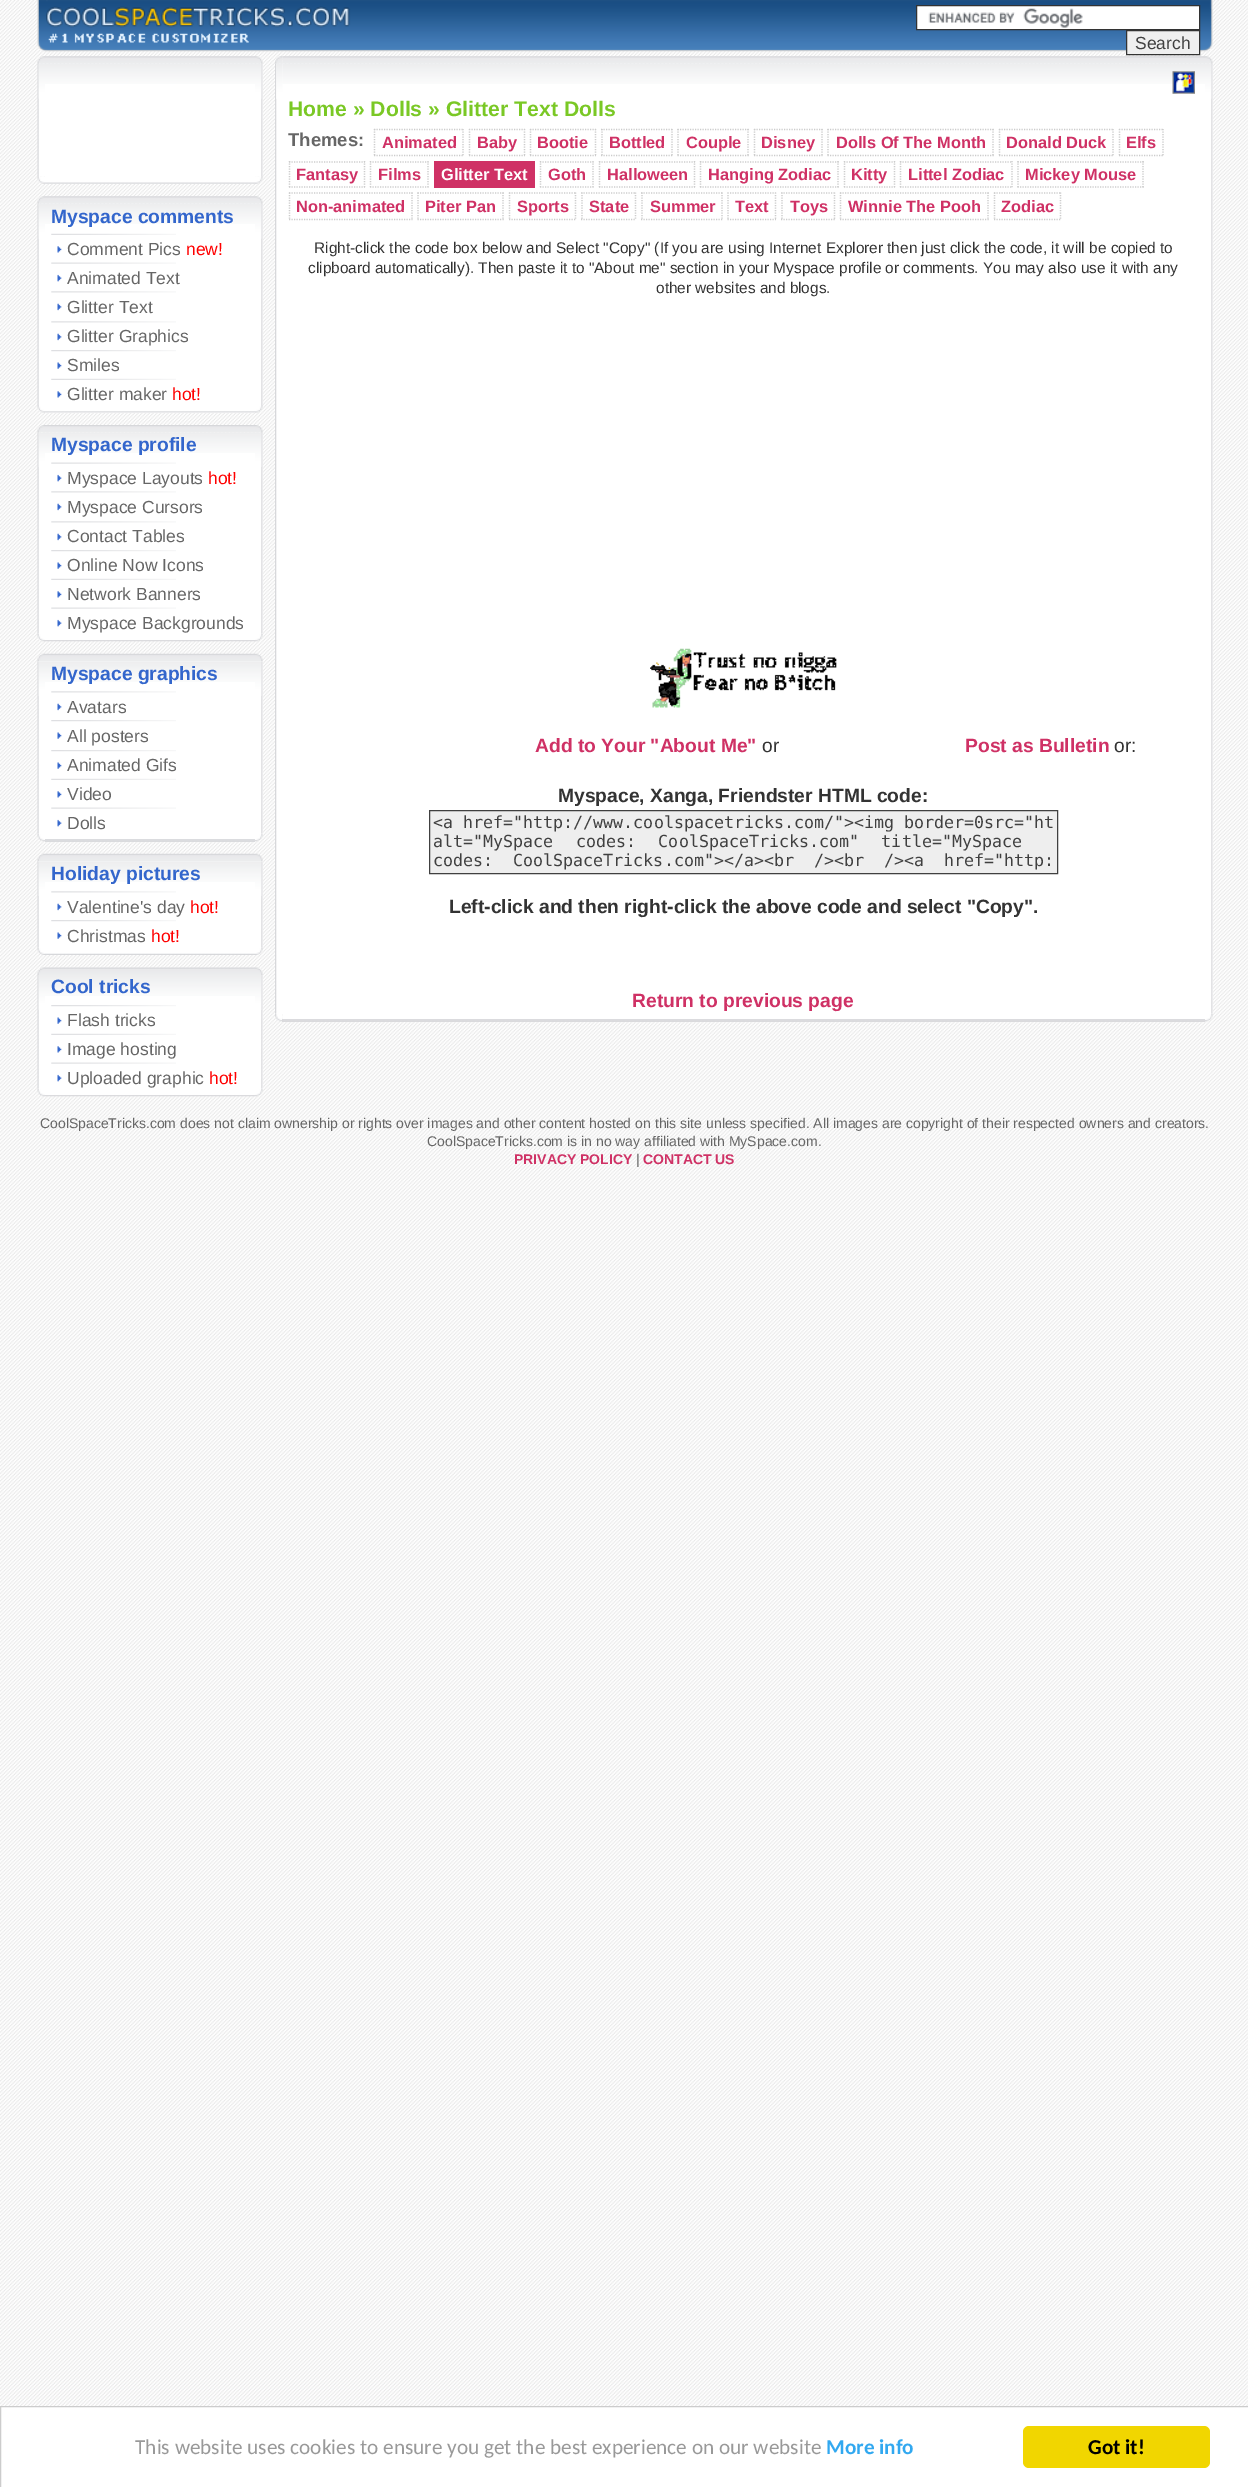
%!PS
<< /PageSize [1248 2487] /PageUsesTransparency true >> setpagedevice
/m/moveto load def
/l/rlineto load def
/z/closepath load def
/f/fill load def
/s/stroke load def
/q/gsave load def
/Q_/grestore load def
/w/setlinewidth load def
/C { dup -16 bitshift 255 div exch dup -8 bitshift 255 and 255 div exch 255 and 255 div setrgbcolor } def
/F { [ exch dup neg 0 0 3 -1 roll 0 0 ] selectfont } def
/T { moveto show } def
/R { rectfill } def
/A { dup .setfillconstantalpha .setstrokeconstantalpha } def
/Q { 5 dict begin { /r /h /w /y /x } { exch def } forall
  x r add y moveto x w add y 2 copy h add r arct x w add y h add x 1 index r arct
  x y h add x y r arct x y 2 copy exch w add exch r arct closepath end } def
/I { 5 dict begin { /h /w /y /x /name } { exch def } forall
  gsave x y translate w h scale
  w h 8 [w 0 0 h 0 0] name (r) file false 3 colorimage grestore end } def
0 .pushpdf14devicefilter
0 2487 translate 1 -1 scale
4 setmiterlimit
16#FFFFFF C
0 0 1248 2487 R
(1.rgb) 0 0 1248 2406 I
(2.rgb) 37 0 1176 52 I
917 6 282 23 R
(3.rgb) 928 8 155 20 I
16#333333 C
916.5 5.5 283 24 rectstroke
16#EFEFEF C
1126.5 30.5 m 73 0 l 0 24 l -73 0 l z q f Q_
16#333333 C
s
/LiberationSans-Regular 17.5 F
16#404040 C
(Search) 1135 49 T
(4.rgb) 37 56 8 8 I
(5.rgb) 45 56 210 8 I
(6.rgb) 255 56 8 8 I
16#FFFFFF C
38 64 7 112 R
(7.rgb) 37 64 2 113 I
(8.rgb) 38 64 7 35 I
45 84 210 100 R
(9.rgb) 45 64 210 20 I
255 64 8 112 R
(10.rgb) 261 64 2 113 I
(11.rgb) 255 64 7 35 I
(12.rgb) 37 176 8 8 I
(13.rgb) 45 182 210 2 I
(14.rgb) 255 176 8 8 I
(15.rgb) 37 196 8 8 I
(16.rgb) 45 196 210 8 I
(17.rgb) 255 196 8 8 I
38 204 7 201 R
(18.rgb) 37 204 2 201 I
(8.rgb) 38 204 7 35 I
45 224 210 189 R
(9.rgb) 45 204 210 20 I
/LiberationSans-Bold 19.25 F
16#3366CC C
(Myspace comments) 51 223 T
(19.rgb) 51 233 125 2 I
(20.rgb) 57 246 5 7 I
/LiberationSans-Regular 17.5 F
16#666666 C
(Comment Pics) 67 255 T
16#FF0000 C
(new!) 186 255 T
(21.rgb) 51 262 125 2 I
(22.rgb) 57 274 5 8 I
16#666666 C
(Animated Text) 67 284 T
(23.rgb) 51 291 125 2 I
(24.rgb) 57 303 5 8 I
(Glitter Text) 67 313 T
(23.rgb) 51 321 125 2 I
(24.rgb) 57 333 5 8 I
(Glitter Graphics) 67 342 T
(25.rgb) 51 350 125 2 I
(26.rgb) 57 362 5 7 I
(Smiles) 67 371 T
(19.rgb) 51 378 125 2 I
(20.rgb) 57 391 5 7 I
(Glitter maker) 67 400 T
16#FF0000 C
(hot!) 172 400 T
16#FFFFFF C
255 204 8 201 R
(27.rgb) 261 204 2 201 I
(11.rgb) 255 204 7 35 I
(28.rgb) 37 405 8 8 I
(29.rgb) 45 411 210 2 I
(30.rgb) 255 405 8 8 I
(31.rgb) 37 425 8 8 I
(32.rgb) 45 425 210 8 I
(33.rgb) 255 425 8 8 I
38 433 7 201 R
(34.rgb) 37 432 2 202 I
(35.rgb) 38 433 7 34 I
45 453 210 188 R
(36.rgb) 45 432 210 21 I
/LiberationSans-Bold 19.25 F
16#3366CC C
(Myspace profile) 51 451 T
(21.rgb) 51 462 125 2 I
(22.rgb) 57 474 5 8 I
/LiberationSans-Regular 17.5 F
16#666666 C
(Myspace Layouts) 67 484 T
16#FF0000 C
(hot!) 208 484 T
(23.rgb) 51 491 125 2 I
(24.rgb) 57 503 5 8 I
16#666666 C
(Myspace Cursors) 67 513 T
(23.rgb) 51 521 125 2 I
(24.rgb) 57 533 5 8 I
(Contact Tables) 67 542 T
(25.rgb) 51 550 125 2 I
(26.rgb) 57 562 5 7 I
(Online Now Icons) 67 571 T
(19.rgb) 51 578 125 2 I
(20.rgb) 57 591 5 7 I
(Network Banners) 67 600 T
(21.rgb) 51 607 125 2 I
(22.rgb) 57 619 5 8 I
(Myspace Backgrounds) 67 629 T
16#FFFFFF C
255 433 8 201 R
(37.rgb) 261 432 2 202 I
(38.rgb) 255 432 7 35 I
(39.rgb) 37 634 8 8 I
(40.rgb) 45 640 210 2 I
(41.rgb) 255 634 8 8 I
(42.rgb) 37 653 8 9 I
(43.rgb) 45 653 210 8 I
(44.rgb) 255 653 8 8 I
38 661 225 173 R
(45.rgb) 37 661 2 173 I
(46.rgb) 38 661 7 35 I
(47.rgb) 45 661 210 21 I
/LiberationSans-Bold 19.25 F
16#3366CC C
(Myspace graphics) 51 680 T
(23.rgb) 51 691 125 2 I
(24.rgb) 57 703 5 8 I
/LiberationSans-Regular 17.5 F
16#666666 C
(Avatars) 67 713 T
(25.rgb) 51 720 125 2 I
(26.rgb) 57 732 5 7 I
(All posters) 67 742 T
(25.rgb) 51 750 125 2 I
(26.rgb) 57 762 5 7 I
(Animated Gifs) 67 771 T
(19.rgb) 51 778 125 2 I
(20.rgb) 57 791 5 7 I
(Video) 67 800 T
(21.rgb) 51 807 125 2 I
(22.rgb) 57 819 5 8 I
(Dolls) 67 829 T
(48.rgb) 261 661 2 173 I
(49.rgb) 255 661 7 35 I
(50.rgb) 37 834 8 8 I
16#FFFFFF C
45 834 210 7 R
0.9 A
16#D7D8DB C
45 839 210 3 R
1 A
(51.rgb) 255 834 8 8 I
(52.rgb) 37 853 8 9 I
(53.rgb) 45 853 210 8 I
(54.rgb) 255 853 8 8 I
16#FFFFFF C
38 861 225 87 R
(55.rgb) 37 861 2 87 I
(46.rgb) 38 861 7 35 I
(47.rgb) 45 861 210 21 I
/LiberationSans-Bold 19.25 F
16#3366CC C
(Holiday pictures) 51 880 T
(23.rgb) 51 891 125 2 I
(24.rgb) 57 903 5 8 I
/LiberationSans-Regular 17.5 F
16#666666 C
(Valentine's day) 67 913 T
16#FF0000 C
(hot!) 190 913 T
(25.rgb) 51 920 125 2 I
(26.rgb) 57 932 5 7 I
16#666666 C
(Christmas) 67 942 T
16#FF0000 C
(hot!) 151 942 T
(56.rgb) 261 861 2 87 I
(49.rgb) 255 861 7 35 I
(57.rgb) 37 947 8 8 I
16#FFFFFF C
45 948 210 6 R
(58.rgb) 45 953 210 2 I
(59.rgb) 255 947 8 8 I
(60.rgb) 37 967 8 8 I
(61.rgb) 45 967 210 8 I
(62.rgb) 255 967 8 8 I
38 975 7 114 R
(63.rgb) 37 975 2 114 I
(64.rgb) 38 975 7 35 I
45 996 210 100 R
(65.rgb) 45 975 210 21 I
/LiberationSans-Bold 19.25 F
16#3366CC C
(Cool tricks) 51 993 T
(25.rgb) 51 1005 125 2 I
(26.rgb) 57 1017 5 7 I
/LiberationSans-Regular 17.5 F
16#666666 C
(Flash tricks) 67 1026 T
(19.rgb) 51 1033 125 2 I
(20.rgb) 57 1046 5 7 I
(Image hosting) 67 1055 T
(21.rgb) 51 1062 125 2 I
(22.rgb) 57 1074 5 8 I
(Uploaded graphic) 67 1084 T
16#FF0000 C
(hot!) 209 1084 T
16#FFFFFF C
255 975 8 114 R
(66.rgb) 261 975 2 114 I
(67.rgb) 255 975 7 35 I
(50.rgb) 37 1089 8 8 I
(68.rgb) 45 1095 210 2 I
(51.rgb) 255 1089 8 8 I
(69.rgb) 275 56 8 8 I
(70.rgb) 282 56 923 8 I
(17.rgb) 1205 56 8 8 I
275 64 8 950 R
(71.rgb) 275 64 2 950 I
(73.rgb) 282 64 923 20 I
(72.rgb) 276 64 7 35 I
283 84 922 937 R
(74.rgb) 1172 71 23 23 I
/LiberationSans-Bold 21.2 F
16#7AC825 C
(Home » Dolls » Glitter Text Dolls) 288 116 T
/LiberationSans-Bold 18.5 F
16#666666 C
(Themes:) 288 146 T
16#CCCCCC C
1.2 w
[1.25 1.25] 0 setdash
374 129.5 m 90 0 l s
463 129 m 0 27 l s
374 155.5 m 90 0 l s
374.5 129 m 0 27 l s
/LiberationSans-Bold 16.4 F
16#CF3165 C
(Animated) 382 148 T
16#CCCCCC C
469 129.5 m 56 0 l 524.5 129 m 0 27 l 469 155.5 m 56 0 l 469.5 129 m 0 27 l s
16#CF3165 C
(Baby) 477 148 T
16#CCCCCC C
530 129.5 m 66 0 l s
595.5 129 m 0 27 l s
530 155.5 m 66 0 l s
530.5 129 m 0 27 l s
16#CF3165 C
(Bootie) 537 148 T
16#CCCCCC C
601 129.5 m 71.5 0 l s
672 129 m 0 27 l s
601 155.5 m 71.5 0 l s
602 129 m 0 27 l s
16#CF3165 C
(Bottled) 609 148 T
16#CCCCCC C
677.5 129.5 m 71.5 0 l s
748 129 m 0 27 l s
677.5 155.5 m 71.5 0 l s
678 129 m 0 27 l s
16#CF3165 C
(Couple) 686 148 T
16#CCCCCC C
754 129.5 m 68.5 0 l s
822 129 m 0 27 l s
754 155.5 m 68.5 0 l s
754.5 129 m 0 27 l s
16#CF3165 C
(Disney) 761 148 T
16#CCCCCC C
827.5 129.5 m 166.5 0 l s
993 129 m 0 27 l s
827.5 155.5 m 166.5 0 l s
828 129 m 0 27 l s
16#CF3165 C
(Dolls Of The Month) 836 148 T
16#CCCCCC C
999 129.5 m 115 0 l s
1113 129 m 0 27 l s
999 155.5 m 115 0 l s
999.5 129 m 0 27 l s
16#CF3165 C
(Donald Duck) 1006 148 T
16#CCCCCC C
1119 129.5 m 45 0 l 1163 129 m 0 27 l 1119 155.5 m 45 0 l 1119.5 129 m 0 27 l s
16#CF3165 C
(Elfs) 1126 148 T
16#CCCCCC C
289 162 m 76 0 l s
364.5 161 m 0 26.5 l s
289 187 m 76 0 l s
289.5 161 m 0 26.5 l s
16#CF3165 C
(Fantasy) 296 180 T
16#CCCCCC C
370 162 m 59 0 l 428 161 m 0 26.5 l 370 187 m 59 0 l 370.5 161 m 0 26.5 l s
16#CF3165 C
(Films) 378 180 T
434 161 101 27 R
16#FFFFFF C
(Glitter Text) 441 180 T
16#CCCCCC C
540 162 m 54 0 l 593 161 m 0 26.5 l 540 187 m 54 0 l 540.5 161 m 0 26.5 l s
16#CF3165 C
(Goth) 548 180 T
16#CCCCCC C
599 162 m 96 0 l s
694.5 161 m 0 26.5 l s
599 187 m 96 0 l s
599.5 161 m 0 26.5 l s
16#CF3165 C
(Halloween) 607 180 T
16#CCCCCC C
700 162 m 139 0 l s
838 161 m 0 26.5 l s
700 187 m 139 0 l s
700.5 161 m 0 26.5 l s
16#CF3165 C
(Hanging Zodiac) 708 180 T
16#CCCCCC C
844 162 m 51 0 l 894.5 161 m 0 26.5 l 844 187 m 51 0 l 844.5 161 m 0 26.5 l s
16#CF3165 C
(Kitty) 851 180 T
16#CCCCCC C
900 162 m 112.5 0 l s
1012 161 m 0 26.5 l s
900 187 m 112.5 0 l s
900.5 161 m 0 26.5 l s
16#CF3165 C
(Littel Zodiac) 908 180 T
16#CCCCCC C
1017.5 162 m 126.5 0 l s
1143 161 m 0 26.5 l s
1017.5 187 m 126.5 0 l s
1018 161 m 0 26.5 l s
16#CF3165 C
(Mickey Mouse) 1025 180 T
16#CCCCCC C
289 193 m 123.5 0 l s
412 192.5 m 0 27.5 l s
289 219.5 m 123.5 0 l s
289.5 192.5 m 0 27.5 l s
16#CF3165 C
(Non-animated) 296 212 T
16#CCCCCC C
417.5 193 m 86.5 0 l s
503 192.5 m 0 27.5 l s
417.5 219.5 m 86.5 0 l s
418 192.5 m 0 27.5 l s
16#CF3165 C
(Piter Pan) 425 212 T
16#CCCCCC C
509 193 m 67 0 l s
575.5 192.5 m 0 27.5 l s
509 219.5 m 67 0 l s
509.5 192.5 m 0 27.5 l s
16#CF3165 C
(Sports) 517 212 T
16#CCCCCC C
581 193 m 55 0 l 635.5 192.5 m 0 27.5 l 581 219.5 m 55 0 l 582 192.5 m 0 27.5 l s
16#CF3165 C
(State) 589 212 T
16#CCCCCC C
641 193 m 81.5 0 l s
722 192.5 m 0 27.5 l s
641 219.5 m 81.5 0 l s
642 192.5 m 0 27.5 l s
16#CF3165 C
(Summer) 650 212 T
16#CCCCCC C
727.5 193 m 48.5 0 l 775.5 192.5 m 0 27.5 l 727.5 219.5 m 48.5 0 l 728 192.5 m 0 27.5 l s
16#CF3165 C
(Text) 735 212 T
16#CCCCCC C
781 193 m 54 0 l 834.5 192.5 m 0 27.5 l 781 219.5 m 54 0 l 782 192.5 m 0 27.5 l s
16#CF3165 C
(Toys) 790 212 T
16#CCCCCC C
840 193 m 149 0 l s
988 192.5 m 0 27.5 l s
840 219.5 m 149 0 l s
840.5 192.5 m 0 27.5 l s
16#CF3165 C
(Winnie The Pooh) 848 212 T
16#CCCCCC C
994 193 m 67 0 l s
1060.5 192.5 m 0 27.5 l s
994 219.5 m 67 0 l s
994.5 192.5 m 0 27.5 l s
16#CF3165 C
(Zodiac) 1001 212 T
/LiberationSans-Regular 15.4 F
16#333333 C
(Right-click the code box below and Select "Copy" \(If you are using Internet Explorer then just click the code, it will be copied to) 314 253 T
(clipboard automatically\). Then paste it to "About me" section in your Myspace profile or comments. You may also use it with any) 308 273 T
(other websites and blogs.) 656 293 T
(75.rgb) 650 648 187 60 I
/LiberationSans-Bold 19.25 F
16#CF3165 C
(Add to Your "About Me") 535 752 T
/LiberationSans-Regular 19.25 F
16#333333 C
(or) 762 752 T
/LiberationSans-Bold 19.25 F
16#CF3165 C
(Post as Bulletin) 965 752 T
/LiberationSans-Regular 19.25 F
16#333333 C
(or:) 1114 752 T
/LiberationSans-Bold 19.25 F
(Myspace, Xanga, Friendster HTML code:) 558 802 T
16#EEEEEE C
429.5 810.5 m 628 0 l 0 63 l -628 0 l z q f Q_
16#404040 C
1 w
[] 0 setdash
s
/DejaVuSansMono-Regular 16.65 F
(<a href="http://www.coolspacetricks.com/"><img border=0src="ht) 433 828 T
433 847 m 12.5 0 32 (alt="MySpace codes: CoolSpaceTricks.com" title="MySpace) widthshow
433 866 m 10 0 32 (codes: CoolSpaceTricks.com"></a><br /><br /><a) widthshow
(href="http:) 944 866 T
/LiberationSans-Bold 19.25 F
16#333333 C
(Left-click and then right-click the above code and select "Copy".) 449 913 T
16#CF3165 C
(Return to previous page) 632 1007 T
16#FFFFFF C
1205 64 8 950 R
(76.rgb) 1211 64 2 950 I
(11.rgb) 1205 64 7 35 I
(77.rgb) 275 1014 8 8 I
0.9 A
16#D7D7DA C
282 1019 923 3 R
1 A
(78.rgb) 1205 1014 8 8 I
/LiberationSans-Regular 14 F
16#666666 C
(CoolSpaceTricks.com does not claim ownership or rights over images and other content hosted on this site unless specified. All images are copyright of their respected owners and creators.) 40 1128 T
(CoolSpaceTricks.com is in no way affiliated with MySpace.com.) 427 1146 T
/LiberationSans-Bold 14 F
16#CF3165 C
(PRIVACY POLICY) 514 1164 T
/LiberationSans-Regular 14 F
16#666666 C
(|) 636 1164 T
/LiberationSans-Bold 14 F
16#CF3165 C
(CONTACT US) 643 1164 T
16#CCCCCC C
.5 2406.5 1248 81 rectstroke
/Carlito-Regular 21.25 F
16#999999 C
(This website uses cookies to ensure you get the best experience on our website) 135 2454 T
/Carlito-Bold 21.25 F
16#31A8F0 C
(More info) 826 2454 T
16#F1D600 C
1023 2426 187 42 6 Q f
16#000000 C
(Got it!) 1088 2454 T
.poppdf14devicefilter showpage
